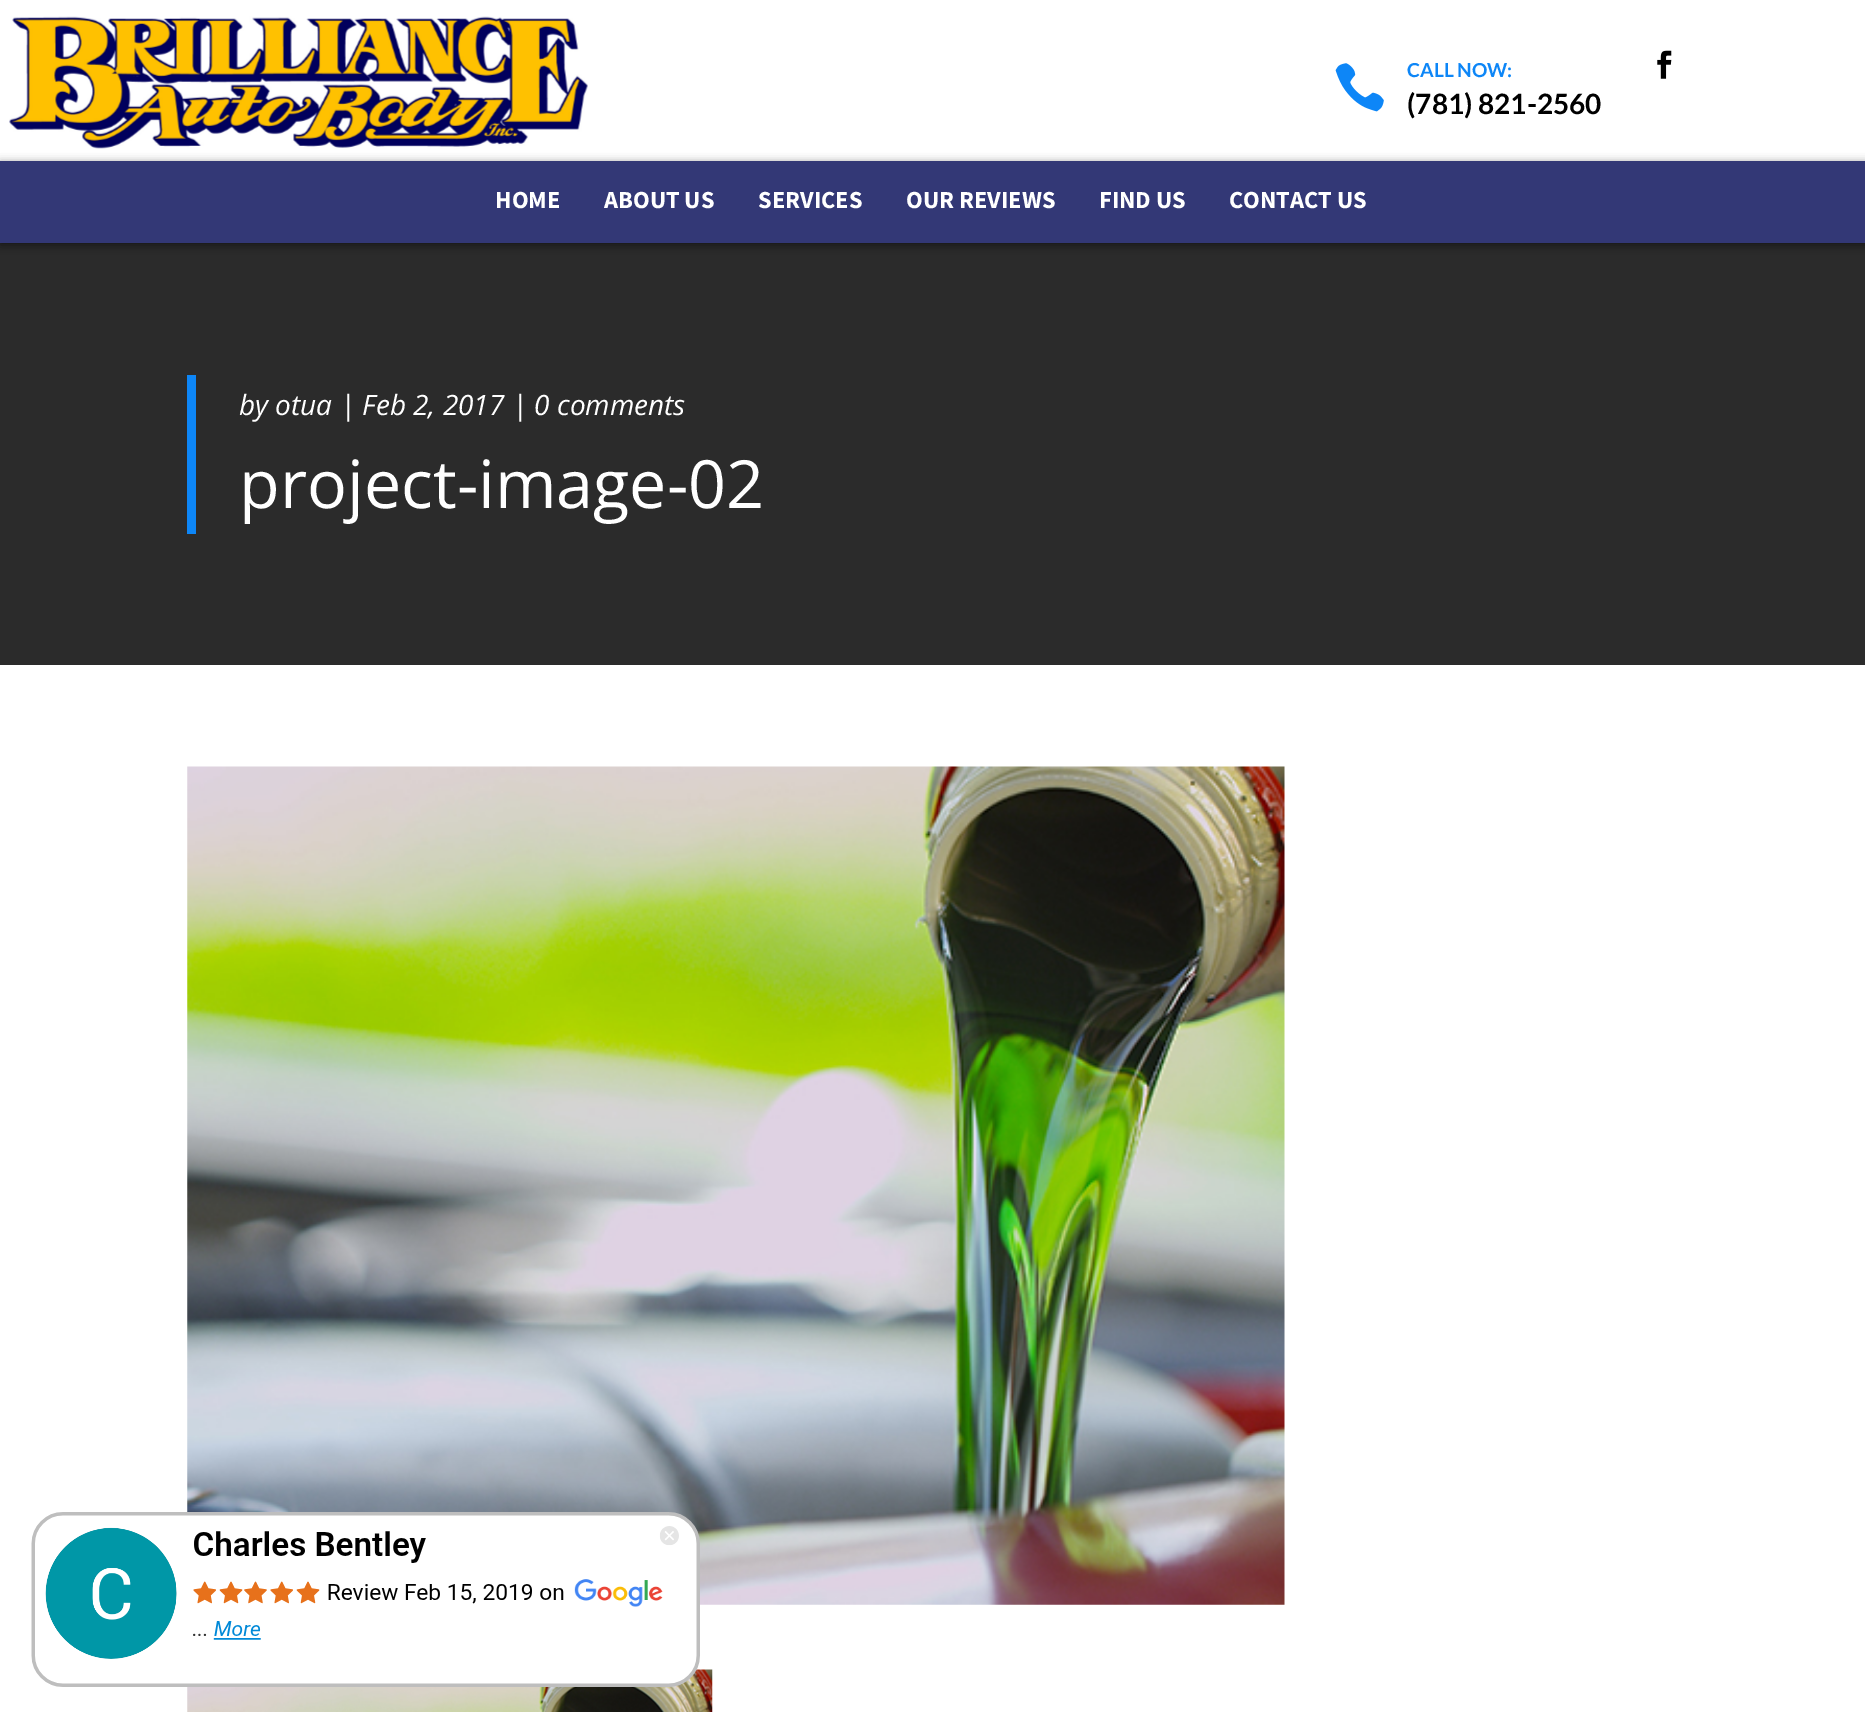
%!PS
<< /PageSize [1865 1712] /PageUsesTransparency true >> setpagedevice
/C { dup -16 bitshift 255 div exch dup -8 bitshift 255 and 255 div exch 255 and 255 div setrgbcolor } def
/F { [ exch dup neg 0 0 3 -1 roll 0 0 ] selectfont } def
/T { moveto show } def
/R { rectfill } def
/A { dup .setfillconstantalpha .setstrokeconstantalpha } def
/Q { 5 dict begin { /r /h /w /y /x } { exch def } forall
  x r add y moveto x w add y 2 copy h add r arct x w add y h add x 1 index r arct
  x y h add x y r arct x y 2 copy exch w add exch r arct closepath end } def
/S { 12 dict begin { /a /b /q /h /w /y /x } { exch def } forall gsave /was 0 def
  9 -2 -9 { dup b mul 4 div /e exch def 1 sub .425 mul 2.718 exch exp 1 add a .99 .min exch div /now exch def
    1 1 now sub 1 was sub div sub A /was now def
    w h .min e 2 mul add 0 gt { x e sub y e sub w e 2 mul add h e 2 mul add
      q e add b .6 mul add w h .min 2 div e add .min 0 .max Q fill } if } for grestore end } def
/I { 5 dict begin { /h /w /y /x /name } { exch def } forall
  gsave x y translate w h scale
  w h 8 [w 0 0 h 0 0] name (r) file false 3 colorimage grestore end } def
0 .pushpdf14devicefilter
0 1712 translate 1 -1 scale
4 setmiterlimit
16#FFFFFF C
0 0 1865 1712 R
(1.rgb) 1335 63 49 49 I
/Lato-Bold 19.25 F
16#0D86F7 C
(CALL NOW:) 1407 77 T
/Lato-Bold 28 F
16#000000 C
(\(781\) 821-2560) 1407 114 T
(2.rgb) 1657 50 15 29 I
16#2B2B2B C
0 243 1865 422 R
16#000000 C
0 163 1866 82 0 4.5 .5 S
16#333876 C
0 161 1865 82 R
(3.rgb) 9 16 579 133 I
/SourceSansPro-Bold 24.5 F
16#FFFFFF C
(HOME) 495 208 T
(ABOUT US) 604 208 T
(SERVICES) 758 208 T
(OUR REVIEWS) 906 208 T
(FIND US) 1099 208 T
(CONTACT US) 1229 208 T
16#0D86F7 C
187 375 9 159 R
/OpenSans-Italic 28 F
16#FFFFFF C
(by otua | Feb 2, 2017 | 0 comments) 239 415 T
/OpenSans-Regular 66.5 F
(project-image-02) 239 508 T
(4.rgb) 187 766 1098 839 I
(5.rgb) 187 1669 526 43 I
(6.rgb) 31 1512 669 175 I
.poppdf14devicefilter showpage
